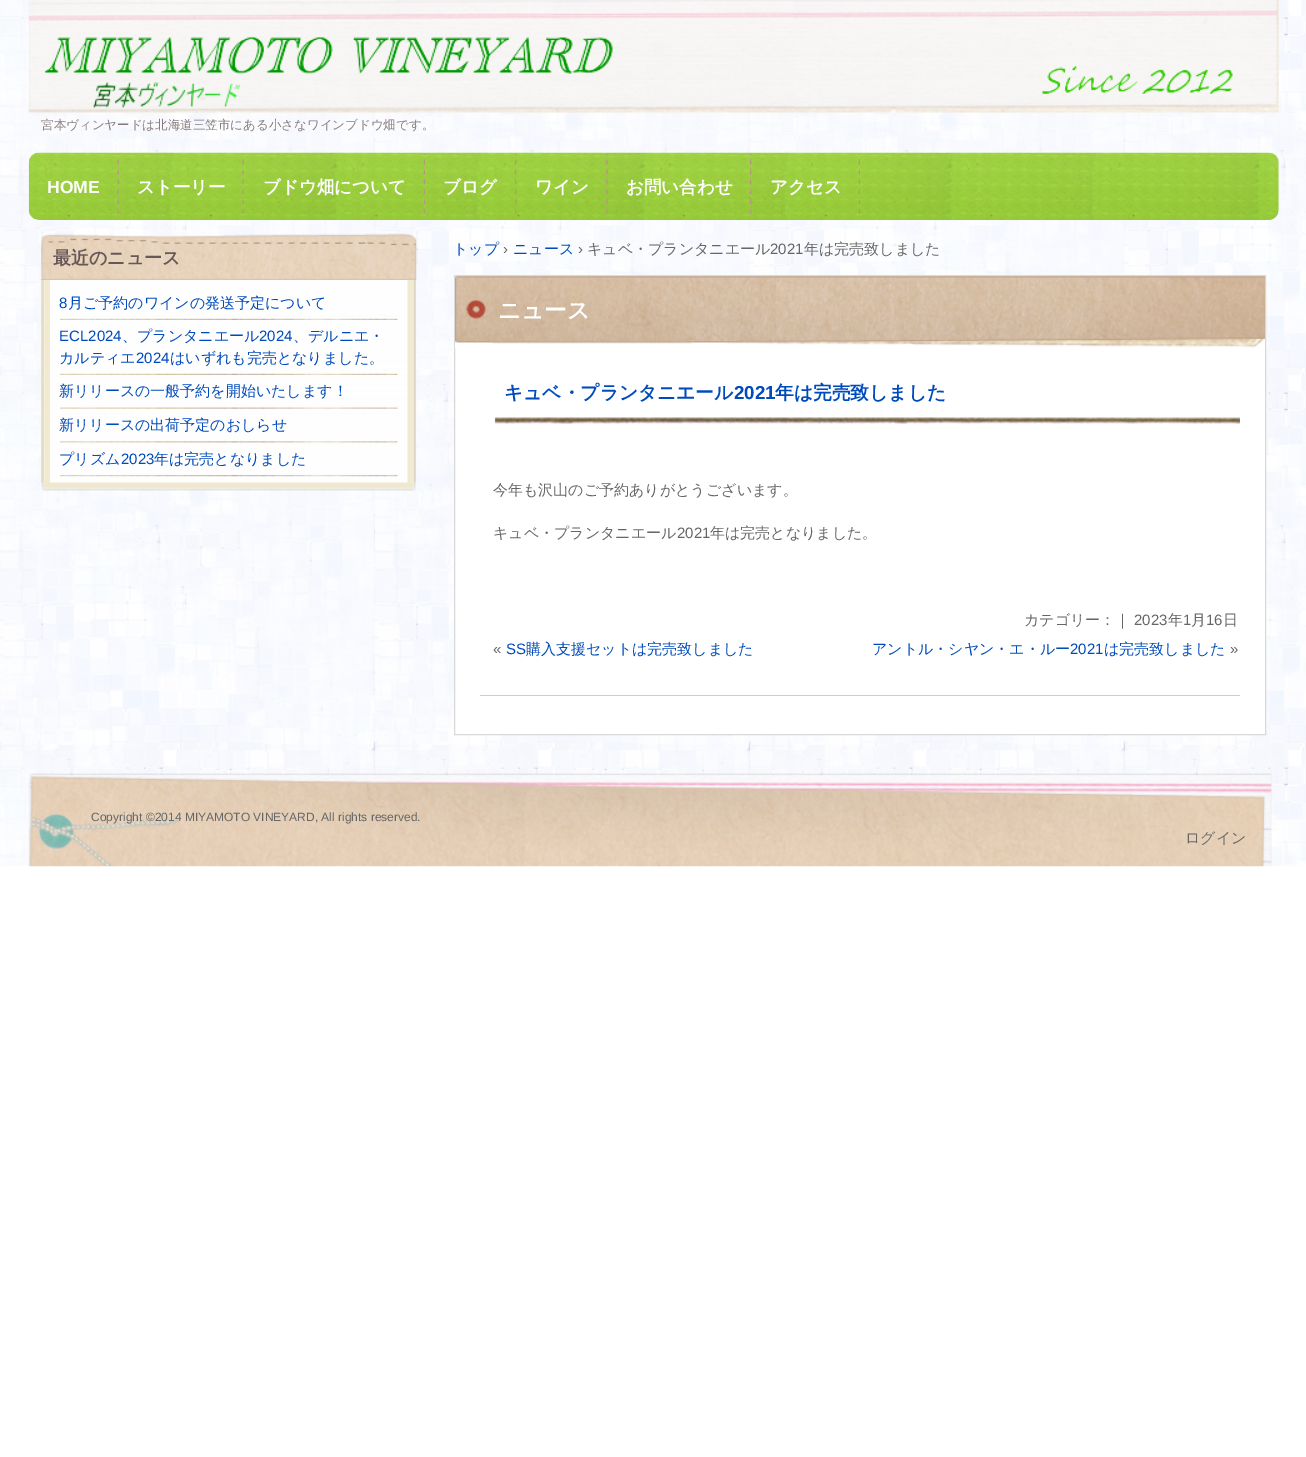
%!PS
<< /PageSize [1306 1457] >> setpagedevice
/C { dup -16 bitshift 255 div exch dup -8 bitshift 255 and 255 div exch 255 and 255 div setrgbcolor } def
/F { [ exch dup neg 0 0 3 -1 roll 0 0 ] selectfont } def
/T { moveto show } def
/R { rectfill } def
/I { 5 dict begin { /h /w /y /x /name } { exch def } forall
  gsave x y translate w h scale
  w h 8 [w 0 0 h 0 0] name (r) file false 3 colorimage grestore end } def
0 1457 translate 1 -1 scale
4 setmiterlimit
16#FFFFFF C
0 0 1306 1457 R
(1.rgb) 0 0 1306 866 I
(2.rgb) 28 0 1251 113 I
(3.rgb) 1041 66 192 28 I
(4.rgb) 44 36 569 72 I
/WenQuanYiZenHei-Medium 12.5 F
16#887B7B C
(宮本ヴィンヤードは北海道三笠市にある小さなワインブドウ畑です。) 41 129 T
(5.rgb) 28 152 1251 68 I
(6.rgb) 117 153 2 62 I
/LiberationSans-Bold 17.5 F
16#FFFFFF C
(HOME) 47 193 T
(7.rgb) 242 153 2 62 I
/WenQuanYiZenHei-Bold 17.5 F
(ストーリー) 137 193 T
(8.rgb) 423 153 2 63 I
(ブドウ畑について) 263 193 T
(9.rgb) 515 153 2 63 I
(ブログ) 443 193 T
(10.rgb) 606 153 2 62 I
(ワイン) 535 193 T
(11.rgb) 750 153 2 63 I
(お問い合わせ) 626 193 T
(12.rgb) 858 153 2 63 I
(アクセス) 770 193 T
/WenQuanYiZenHei-Medium 15 F
16#004BBC C
(トップ) 453 254 T
/LiberationSans-Regular 15 F
16#666666 C
(›) 503 254 T
/WenQuanYiZenHei-Medium 15 F
16#004BBC C
(ニュース) 513 254 T
/LiberationSans-Regular 15 F
16#666666 C
(›) 578 254 T
/WenQuanYiZenHei-Medium 15 F
(キュベ・プランタニエール) 587 254 T
/LiberationSans-Regular 15 F
(2021) 770 254 T
/WenQuanYiZenHei-Medium 15 F
(年は完売致しました) 804 254 T
(13.rgb) 41 483 375 8 I
(14.rgb) 41 233 376 47 I
16#DBC4AC C
41 279 375 1 R
/WenQuanYiZenHei-Bold 18 F
16#685757 C
(最近のニュース) 53 264 T
16#F2EAD2 C
41 280 375 203 R
(15.rgb) 41 280 375 203 I
(16.rgb) 60 318 338 2 I
/LiberationSans-Regular 15 F
16#004BBC C
(8) 59 308 T
/WenQuanYiZenHei-Medium 15 F
(月ご予約のワインの発送予定について) 68 308 T
(16.rgb) 60 373 338 2 I
/LiberationSans-Regular 15 F
(ECL2024) 59 341 T
/WenQuanYiZenHei-Medium 15 F
(、プランタニエール) 122 341 T
/LiberationSans-Regular 15 F
(2024) 259 341 T
/WenQuanYiZenHei-Medium 15 F
(、デルニエ・) 293 341 T
(カルティエ) 59 363 T
/LiberationSans-Regular 15 F
(2024) 136 363 T
/WenQuanYiZenHei-Medium 15 F
(はいずれも完売となりました。) 170 363 T
(17.rgb) 60 407 338 2 I
(新リリースの一般予約を開始いたします！) 59 396 T
(18.rgb) 60 441 338 2 I
(新リリースの出荷予定のおしらせ) 59 430 T
(19.rgb) 60 475 338 2 I
(プリズム) 59 464 T
/LiberationSans-Regular 15 F
(2023) 121 464 T
/WenQuanYiZenHei-Medium 15 F
(年は完売となりました) 154 464 T
16#FFFFFF C
455 348 810 386 R
16#D9D9D9 C
454.5 275.5 811 459 rectstroke
(20.rgb) 455 276 810 72 I
/WenQuanYiZenHei-Bold 22.5 F
16#FFFFFF C
(ニュース) 498 318 T
16#CCCCCC C
480 695 760 1 R
(21.rgb) 494 417 746 7 I
/WenQuanYiZenHei-Bold 18.75 F
16#004BBC C
(キュベ・プランタニエール) 504 399 T
/LiberationSans-Bold 18.75 F
(2021) 734 399 T
/WenQuanYiZenHei-Bold 18.75 F
(年は完売致しました) 775 399 T
/WenQuanYiZenHei-Medium 15 F
16#666666 C
(今年も沢山のご予約ありがとうございます。) 493 495 T
(キュベ・プランタニエール) 493 538 T
/LiberationSans-Regular 15 F
(2021) 677 538 T
/WenQuanYiZenHei-Medium 15 F
(年は完売となりました。) 710 538 T
(カテゴリー：｜) 1024 625 T
/LiberationSans-Regular 15 F
(2023) 1134 625 T
/WenQuanYiZenHei-Medium 15 F
(年) 1168 625 T
/LiberationSans-Regular 15 F
(1) 1183 625 T
/WenQuanYiZenHei-Medium 15 F
(月) 1191 625 T
/LiberationSans-Regular 15 F
(16) 1206 625 T
/WenQuanYiZenHei-Medium 15 F
(日) 1223 625 T
/LiberationSans-Regular 15 F
(«) 493 654 T
16#004BBC C
(SS) 506 654 T
/WenQuanYiZenHei-Medium 15 F
(購入支援セットは完売致しました) 526 654 T
(アントル・シヤン・エ・ルー) 872 654 T
/LiberationSans-Regular 15 F
(2021) 1070 654 T
/WenQuanYiZenHei-Medium 15 F
(は完売致しました) 1104 654 T
/LiberationSans-Regular 15 F
16#666666 C
(») 1230 654 T
(22.rgb) 28 773 1244 94 I
/LiberationSans-Regular 12 F
(Copyright ©2014 MIYAMOTO VINEYARD, All rights reserved.) 91 821 T
/WenQuanYiZenHei-Medium 15 F
(ログイン) 1185 843 T
showpage
